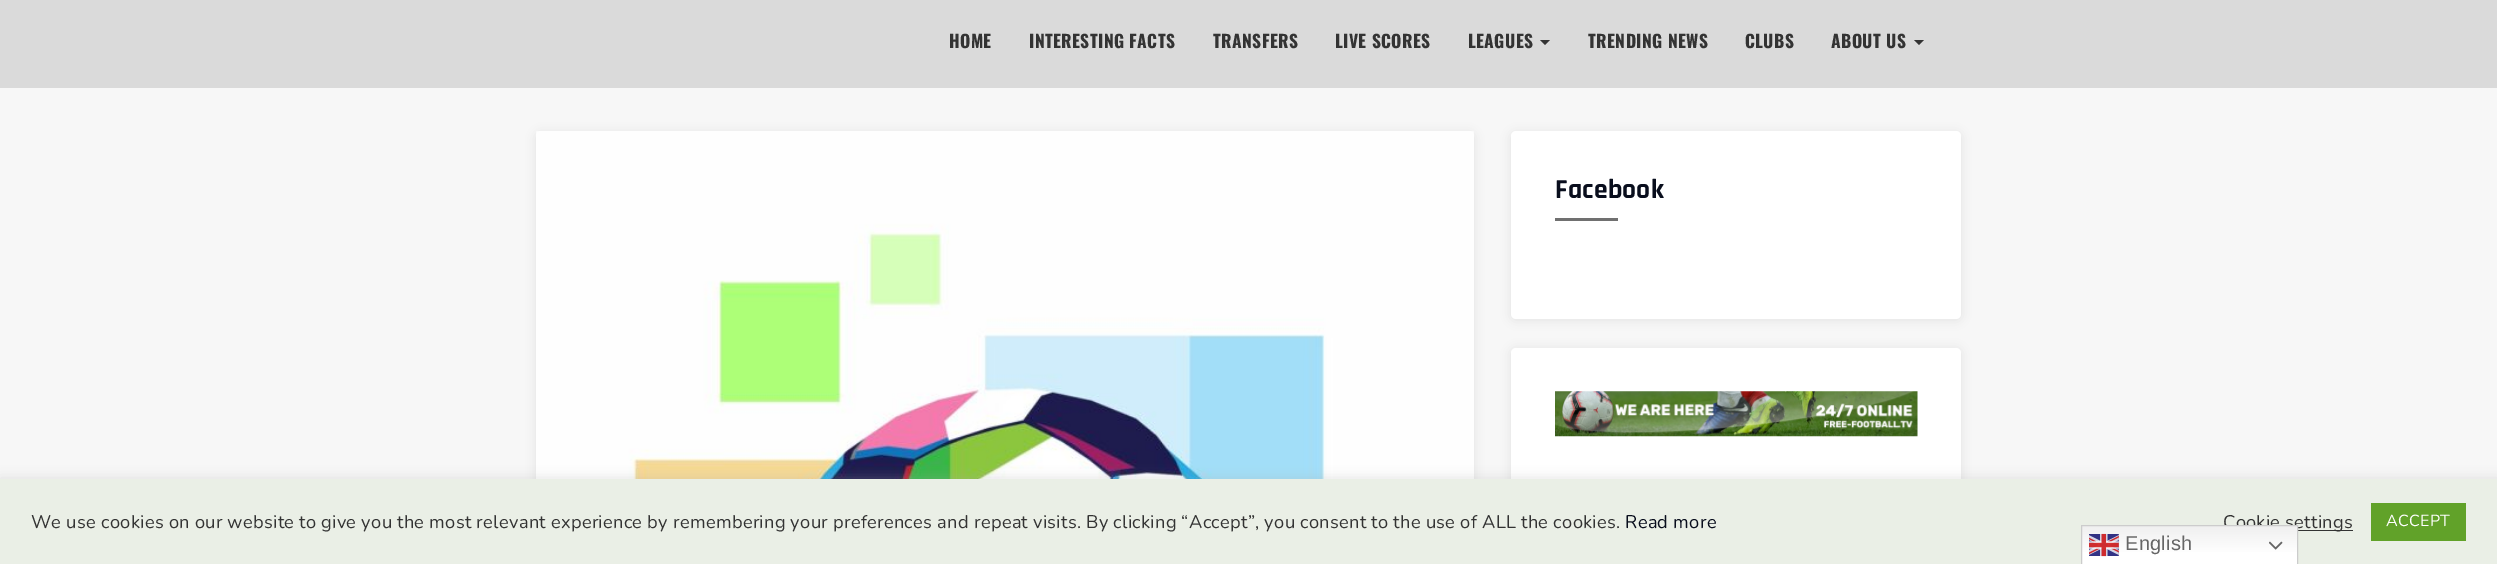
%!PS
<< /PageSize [2497 564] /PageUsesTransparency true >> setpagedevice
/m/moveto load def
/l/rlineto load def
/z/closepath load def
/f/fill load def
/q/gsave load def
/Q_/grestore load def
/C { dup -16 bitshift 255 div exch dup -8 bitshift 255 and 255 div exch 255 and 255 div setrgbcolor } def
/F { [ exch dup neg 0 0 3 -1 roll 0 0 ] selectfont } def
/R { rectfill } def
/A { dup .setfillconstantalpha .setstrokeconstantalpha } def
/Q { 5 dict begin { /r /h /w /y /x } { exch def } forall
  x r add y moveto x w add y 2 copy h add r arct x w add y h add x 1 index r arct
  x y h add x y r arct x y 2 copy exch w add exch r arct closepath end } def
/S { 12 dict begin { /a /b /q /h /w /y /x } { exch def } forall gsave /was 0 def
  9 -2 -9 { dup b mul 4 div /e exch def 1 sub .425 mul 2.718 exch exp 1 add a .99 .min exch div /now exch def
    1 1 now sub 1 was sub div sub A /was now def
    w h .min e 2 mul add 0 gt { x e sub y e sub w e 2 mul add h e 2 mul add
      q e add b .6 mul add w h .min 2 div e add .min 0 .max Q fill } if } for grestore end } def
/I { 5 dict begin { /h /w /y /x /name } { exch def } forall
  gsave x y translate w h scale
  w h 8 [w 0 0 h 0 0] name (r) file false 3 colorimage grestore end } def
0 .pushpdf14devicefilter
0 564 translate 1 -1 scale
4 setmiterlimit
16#F7F7F7 C
0 0 2497 564 R
16#DADADA C
0 0 2497 88 R
/Oswald-Bold 17.5 F
16#333333 C
949 48 m .4 0 (HOME) ashow
1029 48 m .4 0 (INTERESTING FACTS) ashow
1213 48 m .4 0 (TRANSFERS) ashow
1335 48 m .4 0 (LIVE SCORES) ashow
1468 48 m .4 0 (LEAGUES) ashow
1540 40 m 10 0 l -5 5 l z f
1588 48 m .4 0 (TRENDING NEWS) ashow
1745 48 m .4 0 (CLUBS) ashow
1831 48 m .4 0 (ABOUT US) ashow
1914 40 m 10 0 l -5 5 l z f
16#000000 C
536 133 938 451 5 5 .08 S
(1.rgb) 536 131 938 348 I
1511 133 450 187 5 5 .08 S
16#FFFFFF C
1511 131 450 188 5 Q f
/Rajdhani-Bold 27.5 F
16#090E1D C
1555 198 m .25 0 (Facebook) ashow
16#707070 C
1555 218 63 3 R
16#000000 C
1511 349 450 157 5 5 .08 S
16#FFFFFF C
1511 348 450 157 5 Q f
(2.rgb) 1555 391 363 46 I
16#ACABAB C
0 478 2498 86 0 6 .3 S
16#EAEFE6 C
0 479 2497 85 R
/Nunito-ExtraLight 18.33 F
16#333333 C
31 528 m .25 0 (We use cookies on our website to give you the most relevant experience by remembering your preferences and repeat visits. By clicking “Accept”, you consent to the use of ALL the cookies.) ashow
16#090E1D C
1625 528 m .25 0 (Read more) ashow
16#333333 C
2298 530 55 1 R
2223 528 m .25 0 (Cookie settings) ashow
16#61A229 C
2371 503 95 38 R
/Nunito-ExtraLight 16 F
16#FFFFFF C
2386 526 m .25 0 (ACCEPT) ashow
q 2082 526 m 215 0 l 0 38 l -215 0 l z clip newpath
<< /ShadingType 2 /ColorSpace /DeviceRGB /Coords [2189 525 2189 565] /Extend [true true] /Function << /FunctionType 3 /Domain [0 1] /Functions [<< /FunctionType 2 /Domain [0 1] /C0 [.937 .937 .937] /C1 [1 1 1] /N 1 >> << /FunctionType 2 /Domain [0 1] /C0 [1 1 1] /C1 [1 1 1] /N 1 >>] /Bounds [.7] /Encode [0 1 0 1] >> >> shfill Q_
16#CCCCCC C
2081.5 525.5 216 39 rectstroke
(3.rgb) 2089 533 30 24 I
/LiberationSans-Regular 20 F
16#666666 C
2125 550 m .25 0 (English) ashow
(4.rgb) 2269 541 14 9 I
.poppdf14devicefilter showpage
